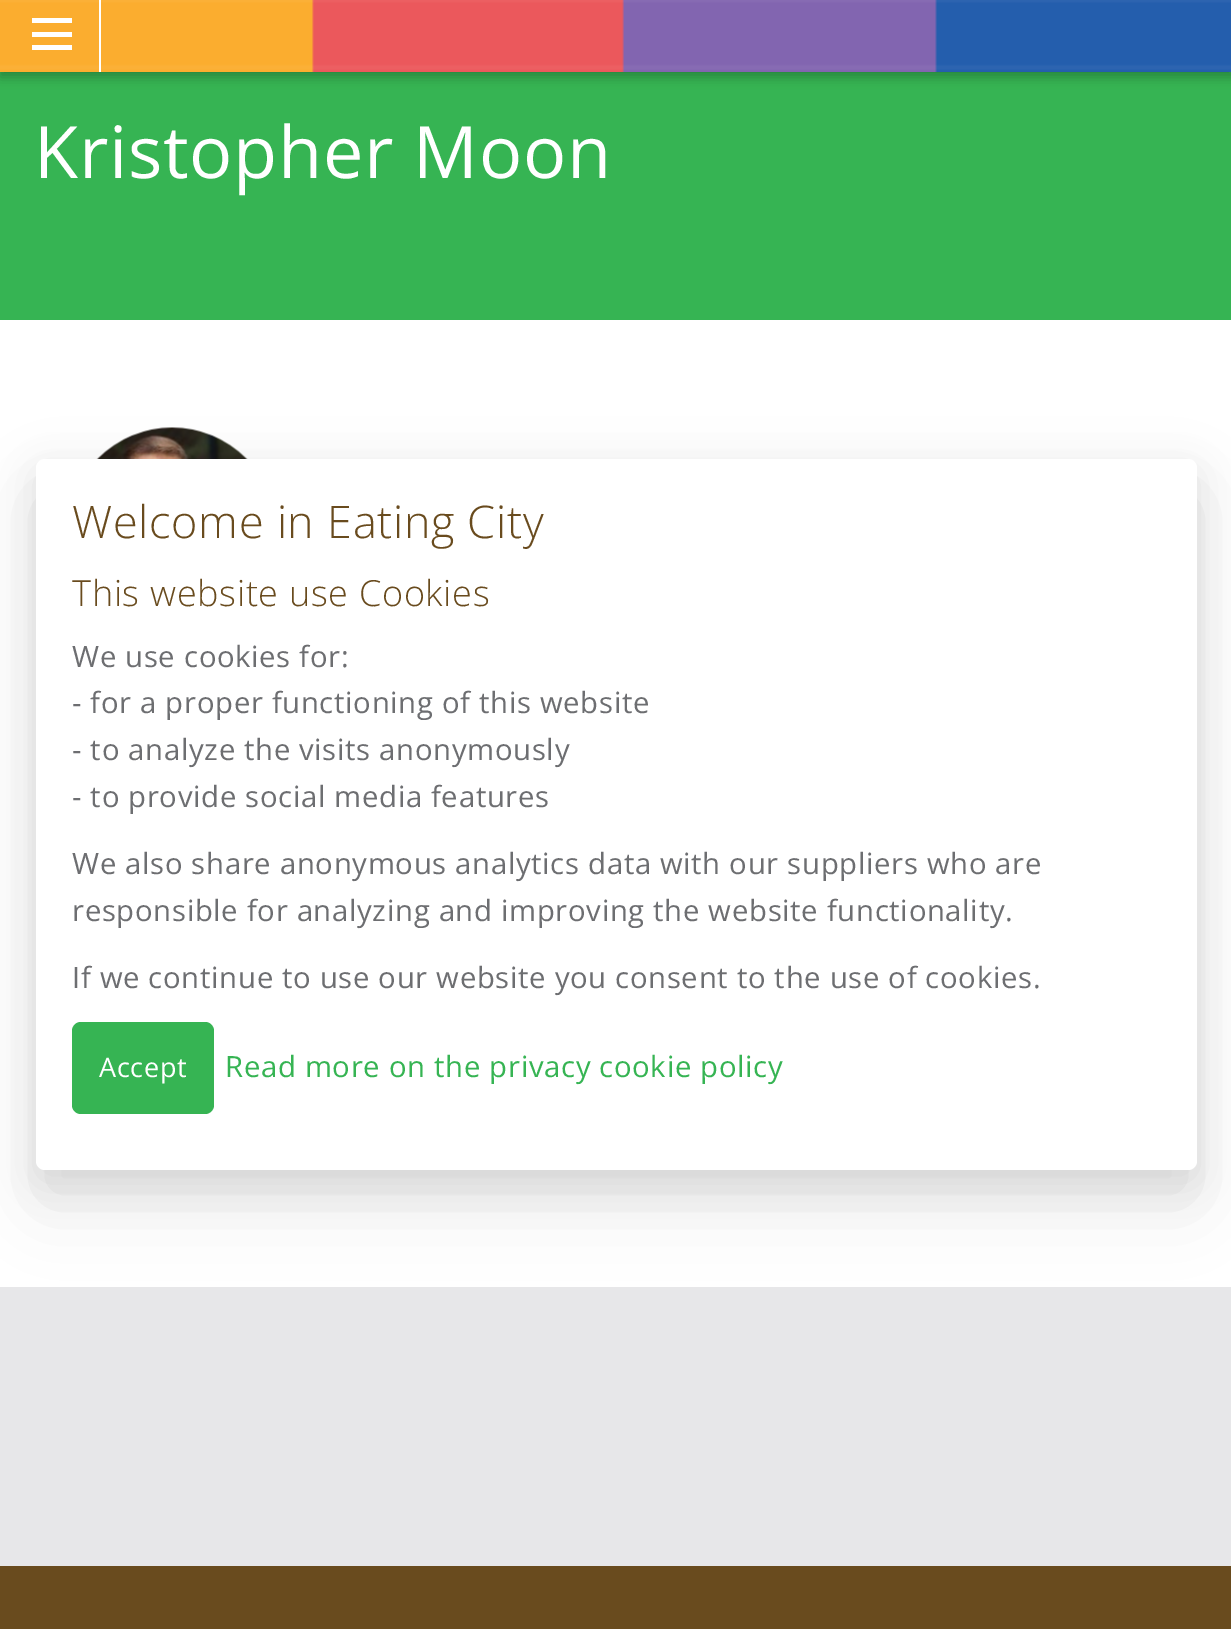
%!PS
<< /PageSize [1231 1629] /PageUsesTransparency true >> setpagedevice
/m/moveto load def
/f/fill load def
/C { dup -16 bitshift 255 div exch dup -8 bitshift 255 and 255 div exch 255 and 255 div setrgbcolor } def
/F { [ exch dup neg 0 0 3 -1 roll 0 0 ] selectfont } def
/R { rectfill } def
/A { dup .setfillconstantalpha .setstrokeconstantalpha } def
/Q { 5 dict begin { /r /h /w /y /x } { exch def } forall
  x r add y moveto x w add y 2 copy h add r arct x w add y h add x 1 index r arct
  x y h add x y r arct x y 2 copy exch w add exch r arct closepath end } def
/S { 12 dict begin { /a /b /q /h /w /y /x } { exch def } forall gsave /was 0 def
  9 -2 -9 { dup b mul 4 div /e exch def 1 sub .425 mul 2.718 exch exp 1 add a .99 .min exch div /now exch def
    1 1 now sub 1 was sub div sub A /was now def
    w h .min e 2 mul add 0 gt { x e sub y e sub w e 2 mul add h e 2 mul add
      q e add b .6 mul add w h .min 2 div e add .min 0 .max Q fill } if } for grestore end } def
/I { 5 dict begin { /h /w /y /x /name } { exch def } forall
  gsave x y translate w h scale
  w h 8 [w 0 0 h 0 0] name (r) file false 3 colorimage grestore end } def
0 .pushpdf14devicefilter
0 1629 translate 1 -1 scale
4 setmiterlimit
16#FFFFFF C
0 0 1231 1629 R
16#36B453 C
0 72 1231 248 R
16#000000 C
0 5 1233 72 0 5.5 .26 S
(1.rgb) 0 0 1231 72 I
16#FFFFFF C
99 0 2 72 R
32 45 40 5 R
32 32 40 5 R
32 18 40 5 R
/OpenSans-Regular 72 F
34 178 m .7 0 (Kristopher Moon) ashow
(2.rgb) 96 427 152 32 I
16#E7E7E9 C
0 1287 1231 279 R
16#694B1E C
0 1566 1231 63 R
16#000000 C
36 470 1161 711 9 17 .08 S
36 493 1161 711 9 34 .11 S
16#FFFFFF C
36 459 1161 711 9 Q f
/OpenSans-Light 45 F
16#694B1E C
72 538 m .7 0 (Welcome in Eating City) ashow
/OpenSans-Light 36 F
72 606 m .7 0 (This website use Cookies) ashow
/OpenSans-Regular 29.25 F
16#6D6E71 C
72 667 m .7 0 (We use cookies for:) ashow
72 713 m .7 0 (- for a proper functioning of this website) ashow
72 760 m .7 0 (- to analyze the visits anonymously) ashow
72 807 m .7 0 (- to provide social media features) ashow
72 874 m .7 0 (We also share anonymous analytics data with our suppliers who are) ashow
72 921 m .7 0 (responsible for analyzing and improving the website functionality.) ashow
72 988 m .7 0 (If we continue to use our website you consent to the use of cookies.) ashow
16#36B453 C
72 1022 142 92 9 Q f
/OpenSans-Regular 27 F
16#FFFFFF C
99 1077 m .7 0 (Accept) ashow
/OpenSans-Regular 29.25 F
16#36B453 C
225 1077 m .7 0 (Read more on the privacy cookie policy) ashow
.poppdf14devicefilter showpage
